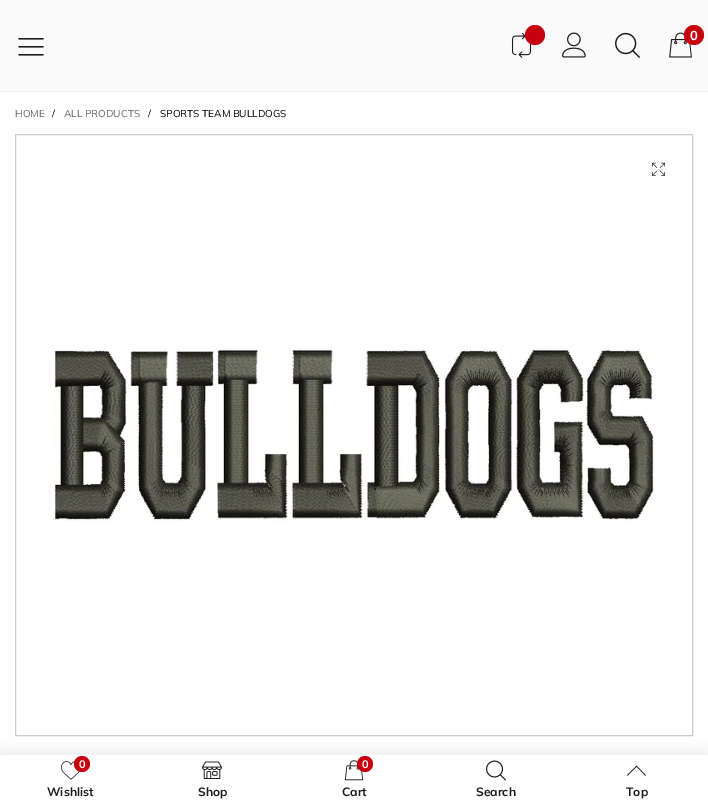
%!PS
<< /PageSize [708 810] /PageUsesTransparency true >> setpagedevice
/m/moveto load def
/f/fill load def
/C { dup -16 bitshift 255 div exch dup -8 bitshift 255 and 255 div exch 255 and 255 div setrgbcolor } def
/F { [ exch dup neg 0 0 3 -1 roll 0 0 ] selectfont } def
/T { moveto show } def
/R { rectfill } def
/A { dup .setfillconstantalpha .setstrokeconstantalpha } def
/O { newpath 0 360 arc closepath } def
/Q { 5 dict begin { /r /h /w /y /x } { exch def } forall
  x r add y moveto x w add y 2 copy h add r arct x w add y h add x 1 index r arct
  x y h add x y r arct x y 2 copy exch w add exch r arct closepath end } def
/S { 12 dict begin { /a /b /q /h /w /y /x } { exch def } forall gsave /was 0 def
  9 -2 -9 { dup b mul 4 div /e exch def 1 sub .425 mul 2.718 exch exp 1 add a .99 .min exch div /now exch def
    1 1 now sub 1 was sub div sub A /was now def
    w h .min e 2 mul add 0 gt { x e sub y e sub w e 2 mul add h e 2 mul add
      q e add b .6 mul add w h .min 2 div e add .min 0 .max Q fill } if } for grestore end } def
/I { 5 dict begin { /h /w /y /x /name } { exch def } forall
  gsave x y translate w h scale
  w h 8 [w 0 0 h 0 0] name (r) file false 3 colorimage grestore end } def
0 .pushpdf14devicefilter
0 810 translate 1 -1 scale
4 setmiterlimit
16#FFFFFF C
0 0 708 810 R
16#FAFAFA C
0 0 708 91 R
16#EEEEEE C
0 91 708 1 R
(1.rgb) 511 32 21 26 I
16#C7020F C
535 35 10 O f
(2.rgb) 562 32 24 26 I
(3.rgb) 615 32 25 26 I
(4.rgb) 669 32 23 26 I
694 35 10 O f
/Muli-Bold 13 F
16#FFFFFF C
(0) 690 40 T
(5.rgb) 18 38 26 18 I
/Muli-Regular 10 F
16#666666 C
(HOME) 15 117 T
16#000000 C
(/) 52 117 T
16#666666 C
(ALL PRODUCTS) 64 117 T
16#000000 C
(/) 148 117 T
(SPORTS TEAM BULLDOGS) 160 117 T
16#CCCCCC C
15.5 134.5 677 601 rectstroke
(6.rgb) 54 348 600 174 I
(7.rgb) 652 162 13 14 I
16#000000 C
0 754 708 55 0 9.5 .1 S
16#FFFFFF C
0 755 708 55 R
(8.rgb) 61 761 19 19 I
16#C7020F C
82 764 8 O f
/Muli-Bold 11 F
16#FFFFFF C
79 768 m -1 0 (0) ashow
/Muli-Bold 12 F
16#1C1C1C C
(Wishlist) 47 796 T
(9.rgb) 202 761 20 18 I
(Shop) 198 796 T
(10.rgb) 344 760 20 21 I
16#C7020F C
365 764 8 O f
/Muli-Bold 11 F
16#FFFFFF C
362 768 m -1 0 (0) ashow
/Muli-Bold 12 F
16#1C1C1C C
(Cart) 342 796 T
(11.rgb) 486 760 20 21 I
(Search) 476 796 T
(12.rgb) 627 765 19 11 I
(Top) 626 796 T
.poppdf14devicefilter showpage
